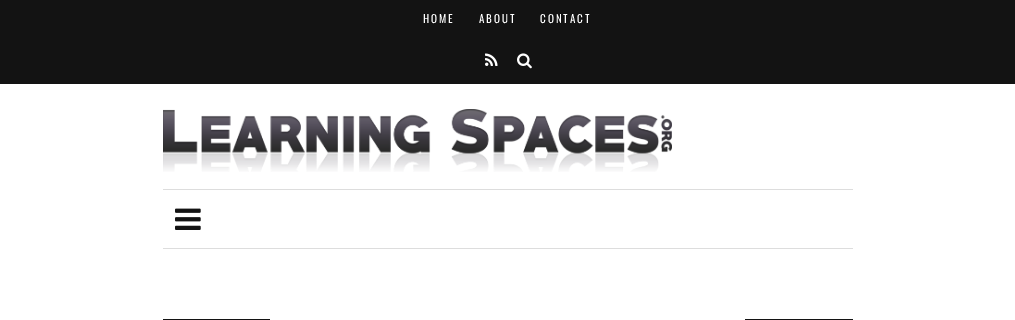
%!PS
<< /PageSize [1015 320] >> setpagedevice
/m/moveto load def
/C { dup -16 bitshift 255 div exch dup -8 bitshift 255 and 255 div exch 255 and 255 div setrgbcolor } def
/F { [ exch dup neg 0 0 3 -1 roll 0 0 ] selectfont } def
/R { rectfill } def
/I { 5 dict begin { /h /w /y /x /name } { exch def } forall
  gsave x y translate w h scale
  w h 8 [w 0 0 h 0 0] name (r) file false 3 colorimage grestore end } def
0 320 translate 1 -1 scale
4 setmiterlimit
16#FFFFFF C
0 0 1015 320 R
16#131313 C
0 0 1015 84 R
/Oswald-Regular 11 F
16#FFFFFF C
423 23 m 2 0 (HOME) ashow
479 23 m 2 0 (ABOUT) ashow
540 23 m 2 0 (CONTACT) ashow
(1.rgb) 485 53 13 13 I
(2.rgb) 517 53 15 16 I
(3.rgb) 163 109 509 63 I
16#DDDDDD C
163 189 690 1 R
163 248 690 1 R
(4.rgb) 175 208 26 22 I
16#131313 C
163 319 690 1 R
16#FFFFFF C
270 319 475 1 R
showpage
